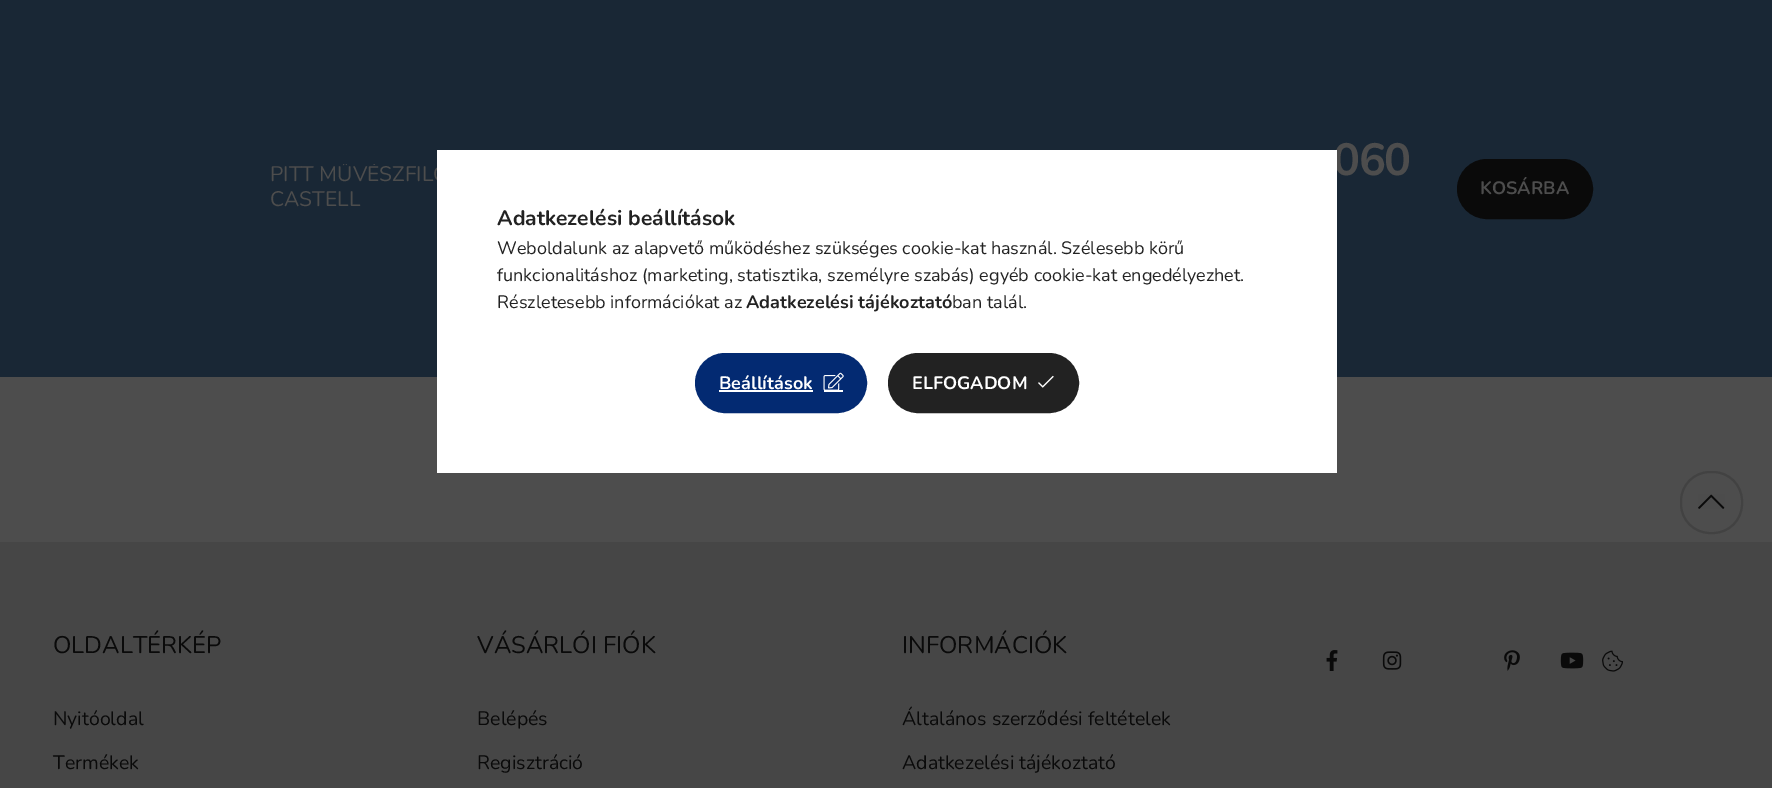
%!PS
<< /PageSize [1772 788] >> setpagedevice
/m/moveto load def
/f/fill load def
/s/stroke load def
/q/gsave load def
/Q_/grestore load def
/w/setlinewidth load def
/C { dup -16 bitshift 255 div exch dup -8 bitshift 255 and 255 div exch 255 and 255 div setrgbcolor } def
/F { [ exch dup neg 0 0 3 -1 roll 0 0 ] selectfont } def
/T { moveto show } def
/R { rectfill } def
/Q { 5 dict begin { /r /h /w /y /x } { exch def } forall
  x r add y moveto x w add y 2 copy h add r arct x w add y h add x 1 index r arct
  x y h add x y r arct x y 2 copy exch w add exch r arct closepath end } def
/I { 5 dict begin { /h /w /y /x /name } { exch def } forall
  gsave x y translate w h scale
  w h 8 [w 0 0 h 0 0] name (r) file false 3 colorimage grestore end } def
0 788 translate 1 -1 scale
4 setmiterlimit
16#4D4D4D C
0 0 1772 788 R
16#192735 C
0 0 1772 377 R
/Nunito-Bold 45 F
16#4D4D4D C
1333 175 m -1.5 0 (060) ashow
q
270 164 819 49 rectclip
/Nunito-Regular 21 F
(PITT MŰVÉSZFILC) 270 181 T
Q_
/Nunito-Regular 21 F
(CASTELL) 270 206 T
16#0A0A0A C
1458 160 134 58 29 Q q f Q_
2 w
s
/Nunito-Bold 18 F
16#4D4D4D C
(KOSÁRBA) 1480 194 T
16#464646 C
0 542 1772 246 R
/Nunito-Regular 24 F
16#0A0A0A C
(OLDALTÉRKÉP) 53 653 T
/Nunito-Regular 19.5 F
(Nyitóoldal) 53 725 T
(Termékek) 53 769 T
/Nunito-Regular 24 F
(VÁSÁRLÓI FIÓK) 477 653 T
/Nunito-Regular 19.5 F
(Belépés) 477 725 T
(Regisztráció) 477 769 T
/Nunito-Regular 24 F
(INFORMÁCIÓK) 902 653 T
/Nunito-Regular 19.5 F
(Általános szerződési feltételek) 902 725 T
(Adatkezelési tájékoztató) 902 769 T
(1.rgb) 1326 650 12 21 I
(2.rgb) 1382 651 20 19 I
(3.rgb) 1504 650 16 21 I
(4.rgb) 1560 652 24 17 I
(5.rgb) 1602 650 21 22 I
16#FFFFFF C
437 150 900 323 R
/Nunito-Bold 21 F
16#222222 C
(Adatkezelési beállítások) 497 225 T
/Nunito-Regular 18 F
(Weboldalunk az alapvető működéshez szükséges cookie-kat használ. Szélesebb körű) 497 254 T
(funkcionalitáshoz \(marketing, statisztika, személyre szabás\) egyéb cookie-kat engedélyezhet.) 497 281 T
(Részletesebb információkat az) 497 308 T
/Nunito-Bold 18 F
(Adatkezelési tájékoztató) 746 308 T
/Nunito-Regular 18 F
(ban talál.) 952 308 T
16#032A72 C
696 354 170 58 29 Q q f Q_
s
/Nunito-Bold 18 F
16#FFFFFF C
(Beállítások) 719 389 T
719 390 94 2 R
824 390 19 2 R
(6.rgb) 823 372 21 19 I
16#222222 C
889 354 189 58 29 Q q f Q_
s
16#FFFFFF C
(ELFOGADOM) 912 389 T
(7.rgb) 1038 375 16 13 I
16#424242 C
1681 472 61 61 29 Q s
(8.rgb) 1698 494 27 15 I
showpage
